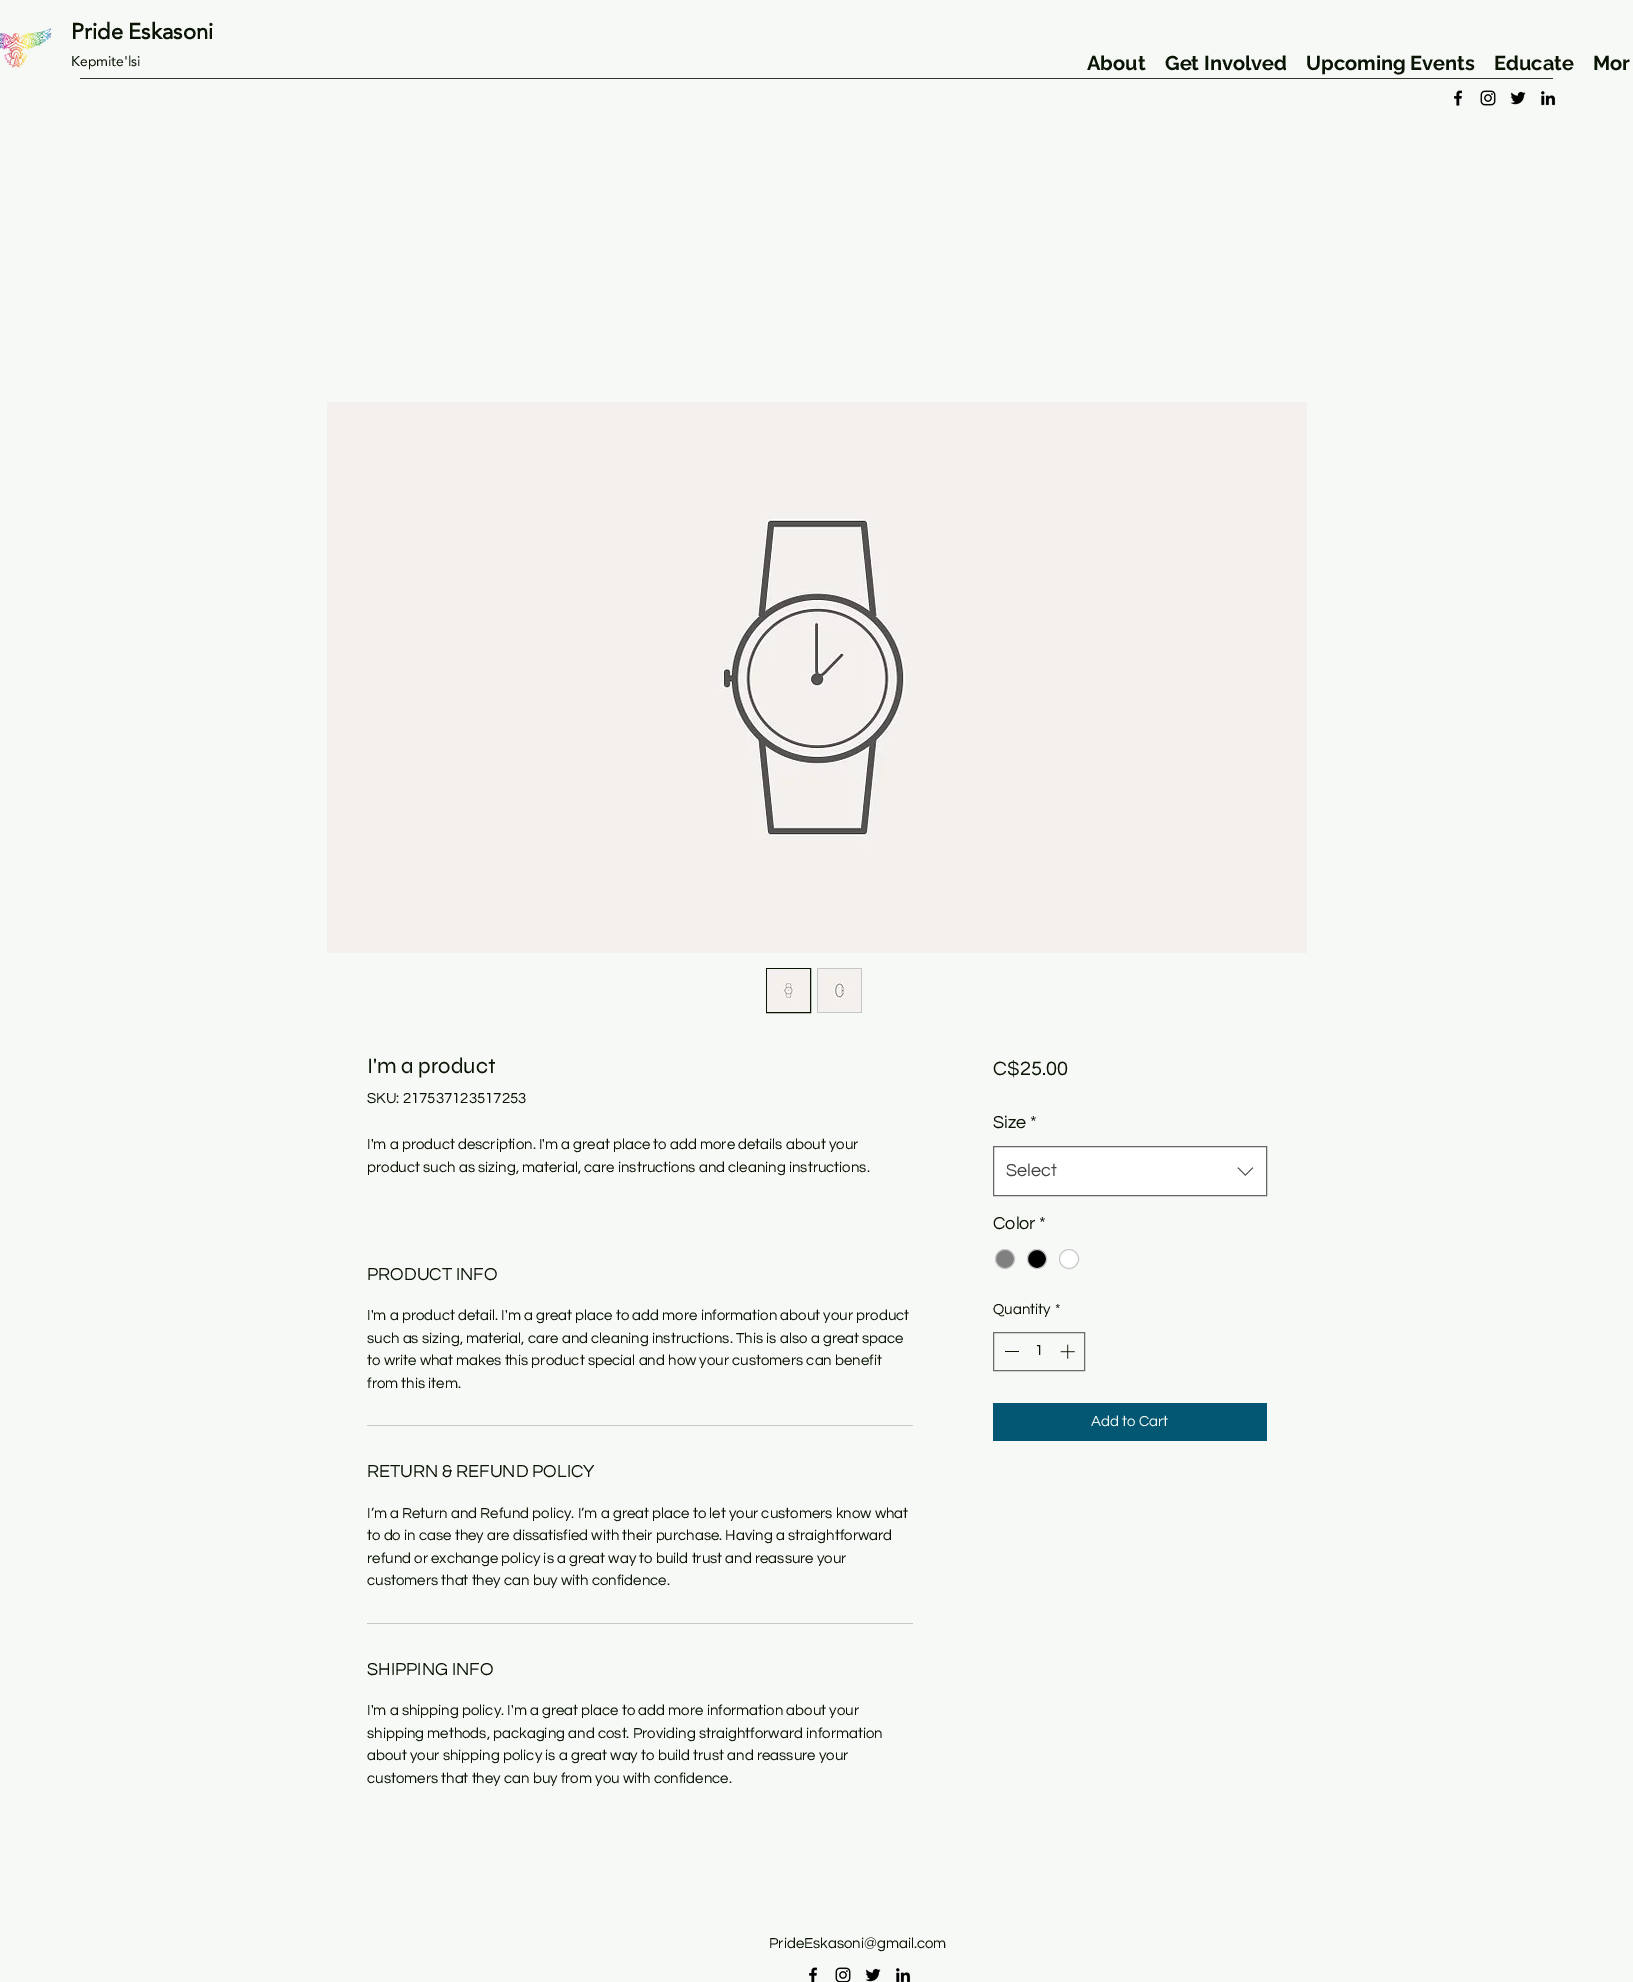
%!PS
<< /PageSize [1633 1982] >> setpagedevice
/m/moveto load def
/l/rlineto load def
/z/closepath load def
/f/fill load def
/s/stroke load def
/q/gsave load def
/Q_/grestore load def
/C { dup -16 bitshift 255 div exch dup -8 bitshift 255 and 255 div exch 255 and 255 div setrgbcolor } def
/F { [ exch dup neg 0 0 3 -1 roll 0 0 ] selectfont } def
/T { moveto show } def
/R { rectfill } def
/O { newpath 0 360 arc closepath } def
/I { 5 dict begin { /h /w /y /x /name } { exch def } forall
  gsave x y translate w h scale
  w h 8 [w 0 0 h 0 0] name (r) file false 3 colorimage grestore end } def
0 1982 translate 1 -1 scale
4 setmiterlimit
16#F6F9F5 C
0 0 1633 1982 R
(1.rgb) 0 28 52 40 I
/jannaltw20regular-Bold 22 F
16#091405 C
(Pride Eskasoni) 71 39 T
/jannaltw20regular-Regular 14 F
(Kepmite'lsi) 71 66 T
/Raleway-Bold 20 F
(About) 1087 70 T
(Get Involved) 1165 70 T
(Upcoming Events) 1306 70 T
(Educate) 1494 70 T
(Mor) 1593 70 T
16#2D3629 C
80 78 1473 1 R
(2.rgb) 1454 90 9 16 I
(3.rgb) 1480 90 16 16 I
(4.rgb) 1510 91 16 14 I
(5.rgb) 1541 91 15 15 I
(6.rgb) 327 402 980 551 I
16#091405 C
766.5 968.5 44 44 rectstroke
(7.rgb) 767 969 43 43 I
16#C5C7C4 C
817 968 45 45 R
(8.rgb) 818 969 43 43 I
/Syne-Regular 22 F
16#091405 C
(I'm a product) 367 1073 T
/Questrial-Regular 15 F
(SKU: 217537123517253) 367 1103 T
(I'm a product description. I'm a great place to add more details about your) 367 1149 T
(product such as sizing, material, care instructions and cleaning instructions.) 367 1172 T
16#C7CBC5 C
367 1425 546 1 R
/Questrial-Regular 18 F
16#091405 C
(PRODUCT INFO) 367 1280 T
/Questrial-Regular 15 F
(I'm a product detail. I'm a great place to add more information about your product) 367 1320 T
(such as sizing, material, care and cleaning instructions. This is also a great space) 367 1343 T
(to write what makes this product special and how your customers can benefit) 367 1365 T
(from this item.) 367 1388 T
16#C7CBC5 C
367 1623 546 1 R
/Questrial-Regular 18 F
16#091405 C
(RETURN & REFUND POLICY) 367 1477 T
/Questrial-Regular 15 F
(I’m a Return and Refund policy. I’m a great place to let your customers know what) 367 1518 T
(to do in case they are dissatisfied with their purchase. Having a straightforward) 367 1540 T
(refund or exchange policy is a great way to build trust and reassure your) 367 1563 T
(customers that they can buy with confidence.) 367 1585 T
/Questrial-Regular 18 F
(SHIPPING INFO) 367 1675 T
/Questrial-Regular 15 F
(I'm a shipping policy. I'm a great place to add more information about your) 367 1715 T
(shipping methods, packaging and cost. Providing straightforward information) 367 1738 T
(about your shipping policy is a great way to build trust and reassure your) 367 1760 T
(customers that they can buy from you with confidence.) 367 1783 T
/Questrial-Regular 20 F
(C$25.00) 993 1075 T
/Questrial-Regular 18 F
(Size *) 993 1128 T
16#FFFFFF C
993.5 1146.5 m 273 0 l 0 49 l -273 0 l z q f Q_
16#666666 C
s
16#444444 C
(Select) 1006 1176 T
(9.rgb) 1237 1167 17 9 I
16#091405 C
(Color *) 993 1229 T
16#808080 C
1005 1259 9.5 O q f Q_
16#C9C9C9 C
s
16#000000 C
1037 1259 9.5 O q f Q_
16#C9C9C9 C
s
16#FFFFFF C
1069 1259 9.5 O q f Q_
16#C9C9C9 C
s
/Questrial-Regular 15 F
16#091405 C
(Quantity) 993 1314 T
(*) 1055 1314 T
16#687065 C
993.5 1332.5 91 38 rectstroke
16#091405 C
1005 1351 14 1 R
(1) 1035 1355 T
(10.rgb) 1060 1344 15 15 I
16#035772 C
993 1403 274 38 R
16#F6F9F5 C
(Add to Cart) 1091 1426 T
16#091405 C
(PrideEskasoni@gmail.com) 769 1948 T
(11.rgb) 809 1967 9 15 I
(12.rgb) 835 1967 16 15 I
(4.rgb) 865 1968 16 14 I
(13.rgb) 896 1968 15 14 I
showpage
